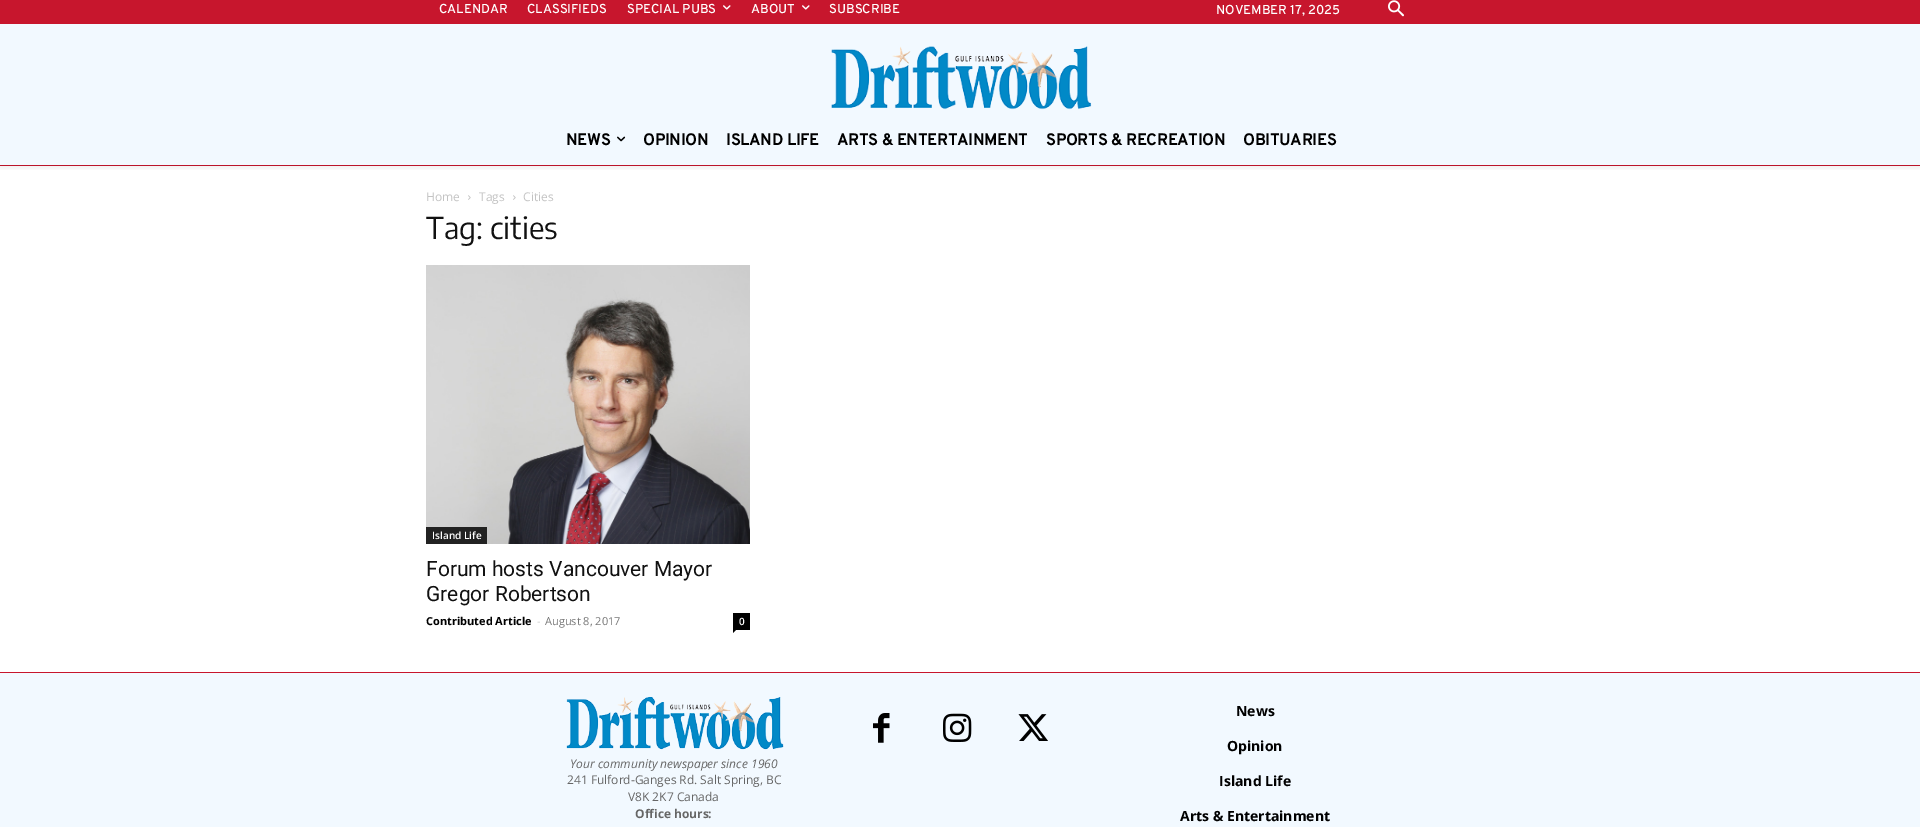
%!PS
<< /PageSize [1920 827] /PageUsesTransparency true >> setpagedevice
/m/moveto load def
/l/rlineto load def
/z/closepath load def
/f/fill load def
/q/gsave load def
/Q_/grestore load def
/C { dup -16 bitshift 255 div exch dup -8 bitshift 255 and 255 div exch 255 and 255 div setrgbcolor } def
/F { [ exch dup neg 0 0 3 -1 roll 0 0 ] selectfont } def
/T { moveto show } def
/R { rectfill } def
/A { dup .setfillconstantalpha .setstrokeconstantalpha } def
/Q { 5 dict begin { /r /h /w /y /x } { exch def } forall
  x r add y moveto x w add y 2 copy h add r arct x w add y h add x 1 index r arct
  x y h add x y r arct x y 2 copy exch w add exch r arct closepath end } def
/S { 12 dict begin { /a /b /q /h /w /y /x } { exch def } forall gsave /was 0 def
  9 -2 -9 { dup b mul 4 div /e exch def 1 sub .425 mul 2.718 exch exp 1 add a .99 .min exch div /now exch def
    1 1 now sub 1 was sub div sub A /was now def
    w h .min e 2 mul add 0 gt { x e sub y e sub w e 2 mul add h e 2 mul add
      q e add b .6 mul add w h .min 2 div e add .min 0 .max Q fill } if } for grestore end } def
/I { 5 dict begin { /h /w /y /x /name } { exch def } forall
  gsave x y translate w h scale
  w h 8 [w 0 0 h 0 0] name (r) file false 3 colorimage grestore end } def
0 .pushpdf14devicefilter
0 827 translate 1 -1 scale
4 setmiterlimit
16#FFFFFF C
0 0 1920 827 R
16#C7162D C
0 165 1920 1 R
0 0 1920 24 R
16#F2F9FF C
0 24 1920 141 R
(3.rgb) 831 46 261 64 I
q
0 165 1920 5 rectclip
16#000000 C
0 -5 1920 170 0 5 .12 S
Q_
/Overpass-Medium 13 F
16#FFFFFF C
(CALENDAR) 439 13 T
(CLASSIFIEDS) 527 13 T
(SPECIAL PUBS) 627 13 T
(1.rgb) 723 5 8 5 I
(ABOUT) 751 13 T
(1.rgb) 802 5 8 5 I
(SUBSCRIBE) 829 13 T
(NOVEMBER 17, 2025) 1216 14 T
(2.rgb) 1388 0 16 17 I
/Overpass-Bold 16 F
16#000000 C
(NEWS) 566 145 T
(4.rgb) 617 136 9 6 I
(OPINION) 643 145 T
(ISLAND LIFE) 726 145 T
(ARTS & ENTERTAINMENT) 837 145 T
(SPORTS & RECREATION) 1046 145 T
(OBITUARIES) 1243 145 T
/OpenSans-Regular 12 F
16#C3C3C3 C
(Home) 426 201 T
(5.rgb) 468 195 3 5 I
(Tags) 479 201 T
(5.rgb) 513 195 3 5 I
(Cities) 523 201 T
/EncodeSansCondensed-Regular 30 F
16#111111 C
(Tag: cities) 426 239 T
(6.rgb) 426 265 324 279 I
16#222222 C
426 527 61 17 R
/OpenSans-SemiBold 10 F
16#FFFFFF C
(Island Life) 432 539 T
/Roboto-Regular 21 F
16#111111 C
(Forum hosts Vancouver Mayor) 426 576 T
(Gregor Robertson) 426 601 T
/OpenSans-Bold 11 F
16#000000 C
(Contributed Article) 426 625 T
/OpenSans-Regular 11 F
16#CCCCCC C
(-) 537 625 T
16#767676 C
(August 8, 2017) 545 625 T
16#000000 C
733 613 17 17 R
/OpenSans-SemiBold 10 F
16#FFFFFF C
(0) 739 625 T
16#000000 C
733 630 m 3 0 l -3 3 l z f
16#C7162D C
0 672 1920 1 R
16#F2F9FF C
0 673 1920 154 R
(7.rgb) 873 713 17 30 I
(8.rgb) 943 713 29 29 I
(9.rgb) 1018 714 30 27 I
/OpenSans-Bold 14 F
16#000000 C
(News) 1236 716 T
(Opinion) 1227 751 T
(Island Life) 1219 786 T
(Arts & Entertainment) 1180 821 T
(10.rgb) 566 696 218 54 I
/OpenSans-Italic 12 F
16#666666 C
(Your community newspaper since 1960) 570 768 T
/OpenSans-Regular 12 F
(241 Fulford-Ganges Rd. Salt Spring, BC) 567 784 T
(V8K 2K7 Canada) 628 801 T
/OpenSans-Bold 12 F
(Office hours:) 635 818 T
.poppdf14devicefilter showpage
